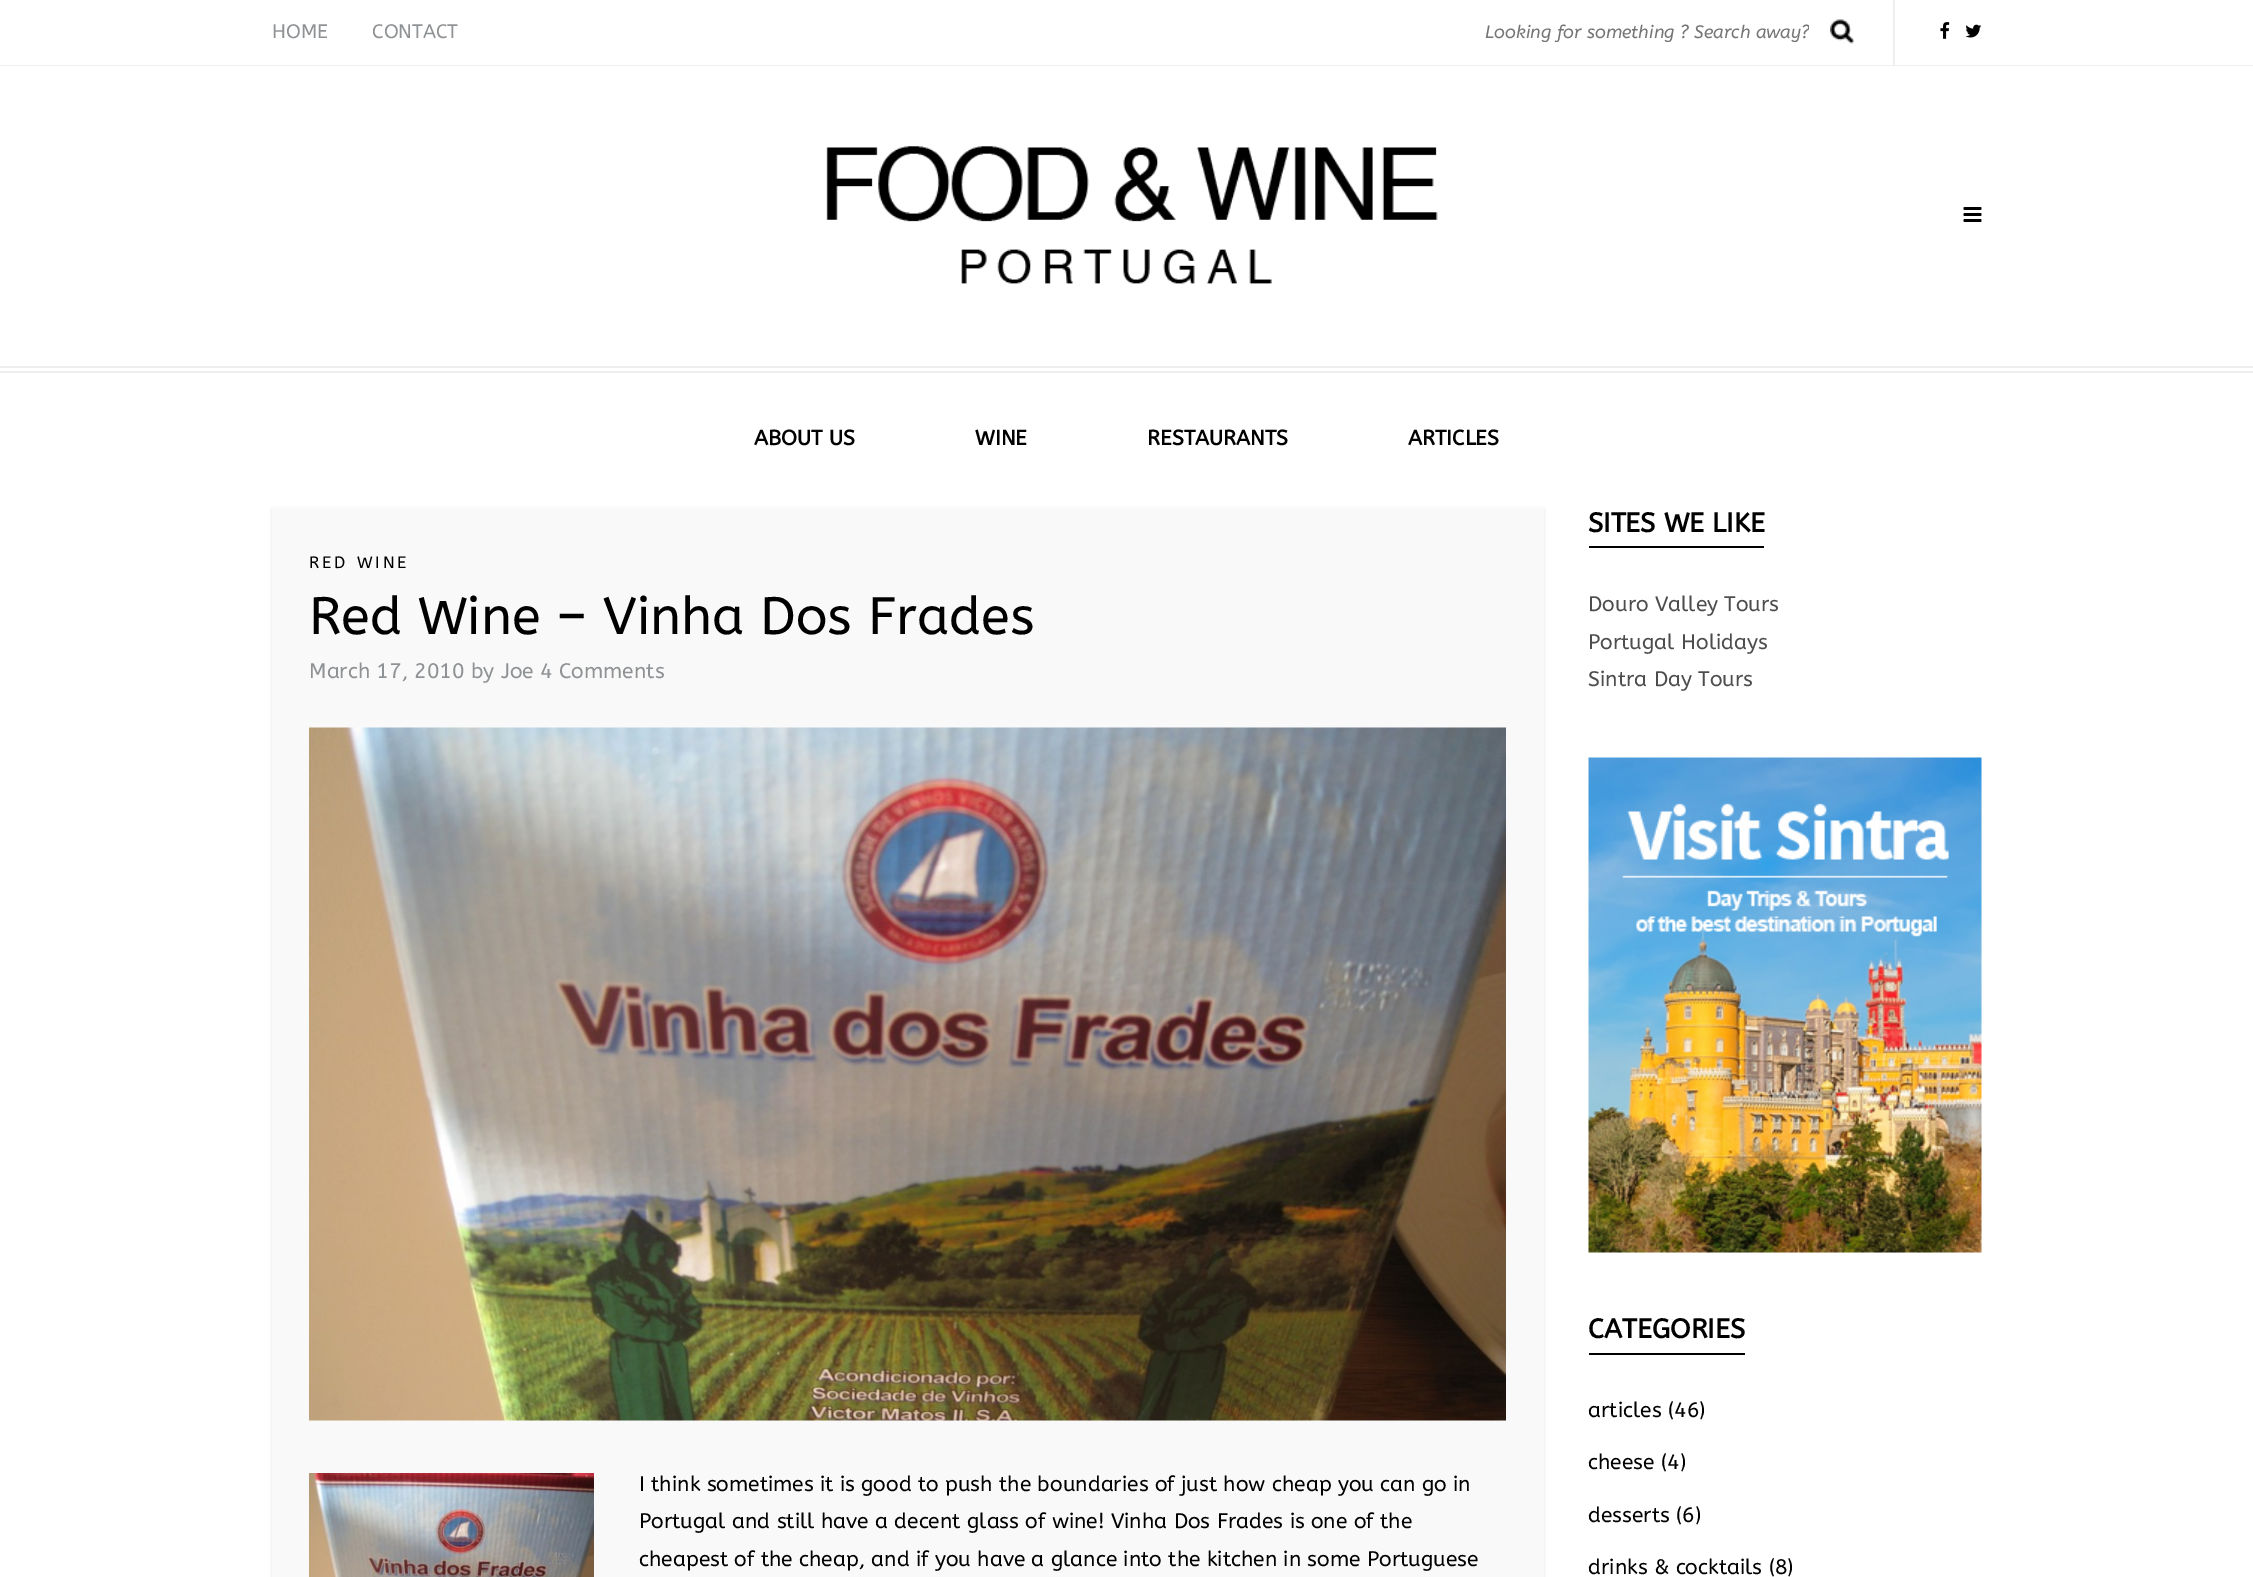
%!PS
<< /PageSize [2253 1577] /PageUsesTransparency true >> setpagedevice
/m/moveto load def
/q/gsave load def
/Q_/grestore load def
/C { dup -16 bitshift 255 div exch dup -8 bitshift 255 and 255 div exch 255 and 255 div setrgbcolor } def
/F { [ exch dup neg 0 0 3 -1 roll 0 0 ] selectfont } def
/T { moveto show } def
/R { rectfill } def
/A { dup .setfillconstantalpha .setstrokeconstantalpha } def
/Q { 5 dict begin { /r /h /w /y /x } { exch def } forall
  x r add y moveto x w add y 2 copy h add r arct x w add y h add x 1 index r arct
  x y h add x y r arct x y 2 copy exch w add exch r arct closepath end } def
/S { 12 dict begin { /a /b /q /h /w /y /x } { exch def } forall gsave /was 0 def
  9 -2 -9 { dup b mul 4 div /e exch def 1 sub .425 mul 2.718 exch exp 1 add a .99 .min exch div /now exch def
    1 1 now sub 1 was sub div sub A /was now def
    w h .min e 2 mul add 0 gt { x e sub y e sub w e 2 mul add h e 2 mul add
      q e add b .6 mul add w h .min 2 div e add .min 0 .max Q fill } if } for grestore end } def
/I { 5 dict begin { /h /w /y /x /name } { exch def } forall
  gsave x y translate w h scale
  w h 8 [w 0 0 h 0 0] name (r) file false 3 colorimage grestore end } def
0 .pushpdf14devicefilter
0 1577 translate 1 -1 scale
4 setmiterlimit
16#FFFFFF C
0 0 2253 1577 R
16#EEEEEE C
0 65 2253 1 R
/ABeeZee-Regular 19.5 F
16#8F9294 C
(HOME) 272 38 T
(CONTACT) 372 38 T
q
1485 21 324 21 rectclip
/ABeeZee-Italic 18 F
16#757575 C
(Looking for something ? Search away?) 1485 38 T
Q_
(1.rgb) 1830 19 24 25 I
16#EEEEEE C
1893 0 2 65 R
(2.rgb) 1940 22 10 17 I
(3.rgb) 1965 24 17 14 I
(4.rgb) 826 146 612 138 I
(5.rgb) 1963 207 19 15 I
0 366 2253 2 R
0 371 2253 2 R
/ABeeZee-Bold 21 F
16#000000 C
(ABOUT US) 754 445 T
(WINE) 975 445 T
(RESTAURANTS) 1147 445 T
(ARTICLES) 1408 445 T
272 509 1272 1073 0 1.5 .1 S
16#F9F9F9 C
272 507 1272 1070 R
/ABeeZee-Regular 16.5 F
16#000000 C
309 568 m 3 0 (RED WINE) ashow
/ABeeZee-Regular 52.5 F
(Red Wine – Vinha Dos Frades) 309 634 T
/ABeeZee-Regular 21 F
16#8F9294 C
(March 17, 2010 by Joe 4 Comments) 309 678 T
(6.rgb) 309 727 1197 694 I
(7.rgb) 309 1473 285 104 I
16#000000 C
(I think sometimes it is good to push the boundaries of just how cheap you can go in) 639 1491 T
(Portugal and still have a decent glass of wine! Vinha Dos Frades is one of the) 639 1528 T
(cheapest of the cheap, and if you have a glance into the kitchen in some Portuguese) 639 1566 T
1589 546 175 2 R
/ABeeZee-Bold 27 F
(SITES WE LIKE) 1588 532 T
/ABeeZee-Regular 21 F
16#4D4D4D C
(Douro Valley Tours) 1588 611 T
(Portugal Holidays) 1588 649 T
(Sintra Day Tours) 1588 686 T
(8.rgb) 1588 757 394 496 I
16#000000 C
1589 1353 156 2 R
/ABeeZee-Bold 27 F
(CATEGORIES) 1588 1338 T
/ABeeZee-Regular 21 F
(articles \(46\)) 1588 1417 T
(cheese \(4\)) 1588 1469 T
(desserts \(6\)) 1588 1522 T
(drinks & cocktails \(8\)) 1588 1574 T
.poppdf14devicefilter showpage
